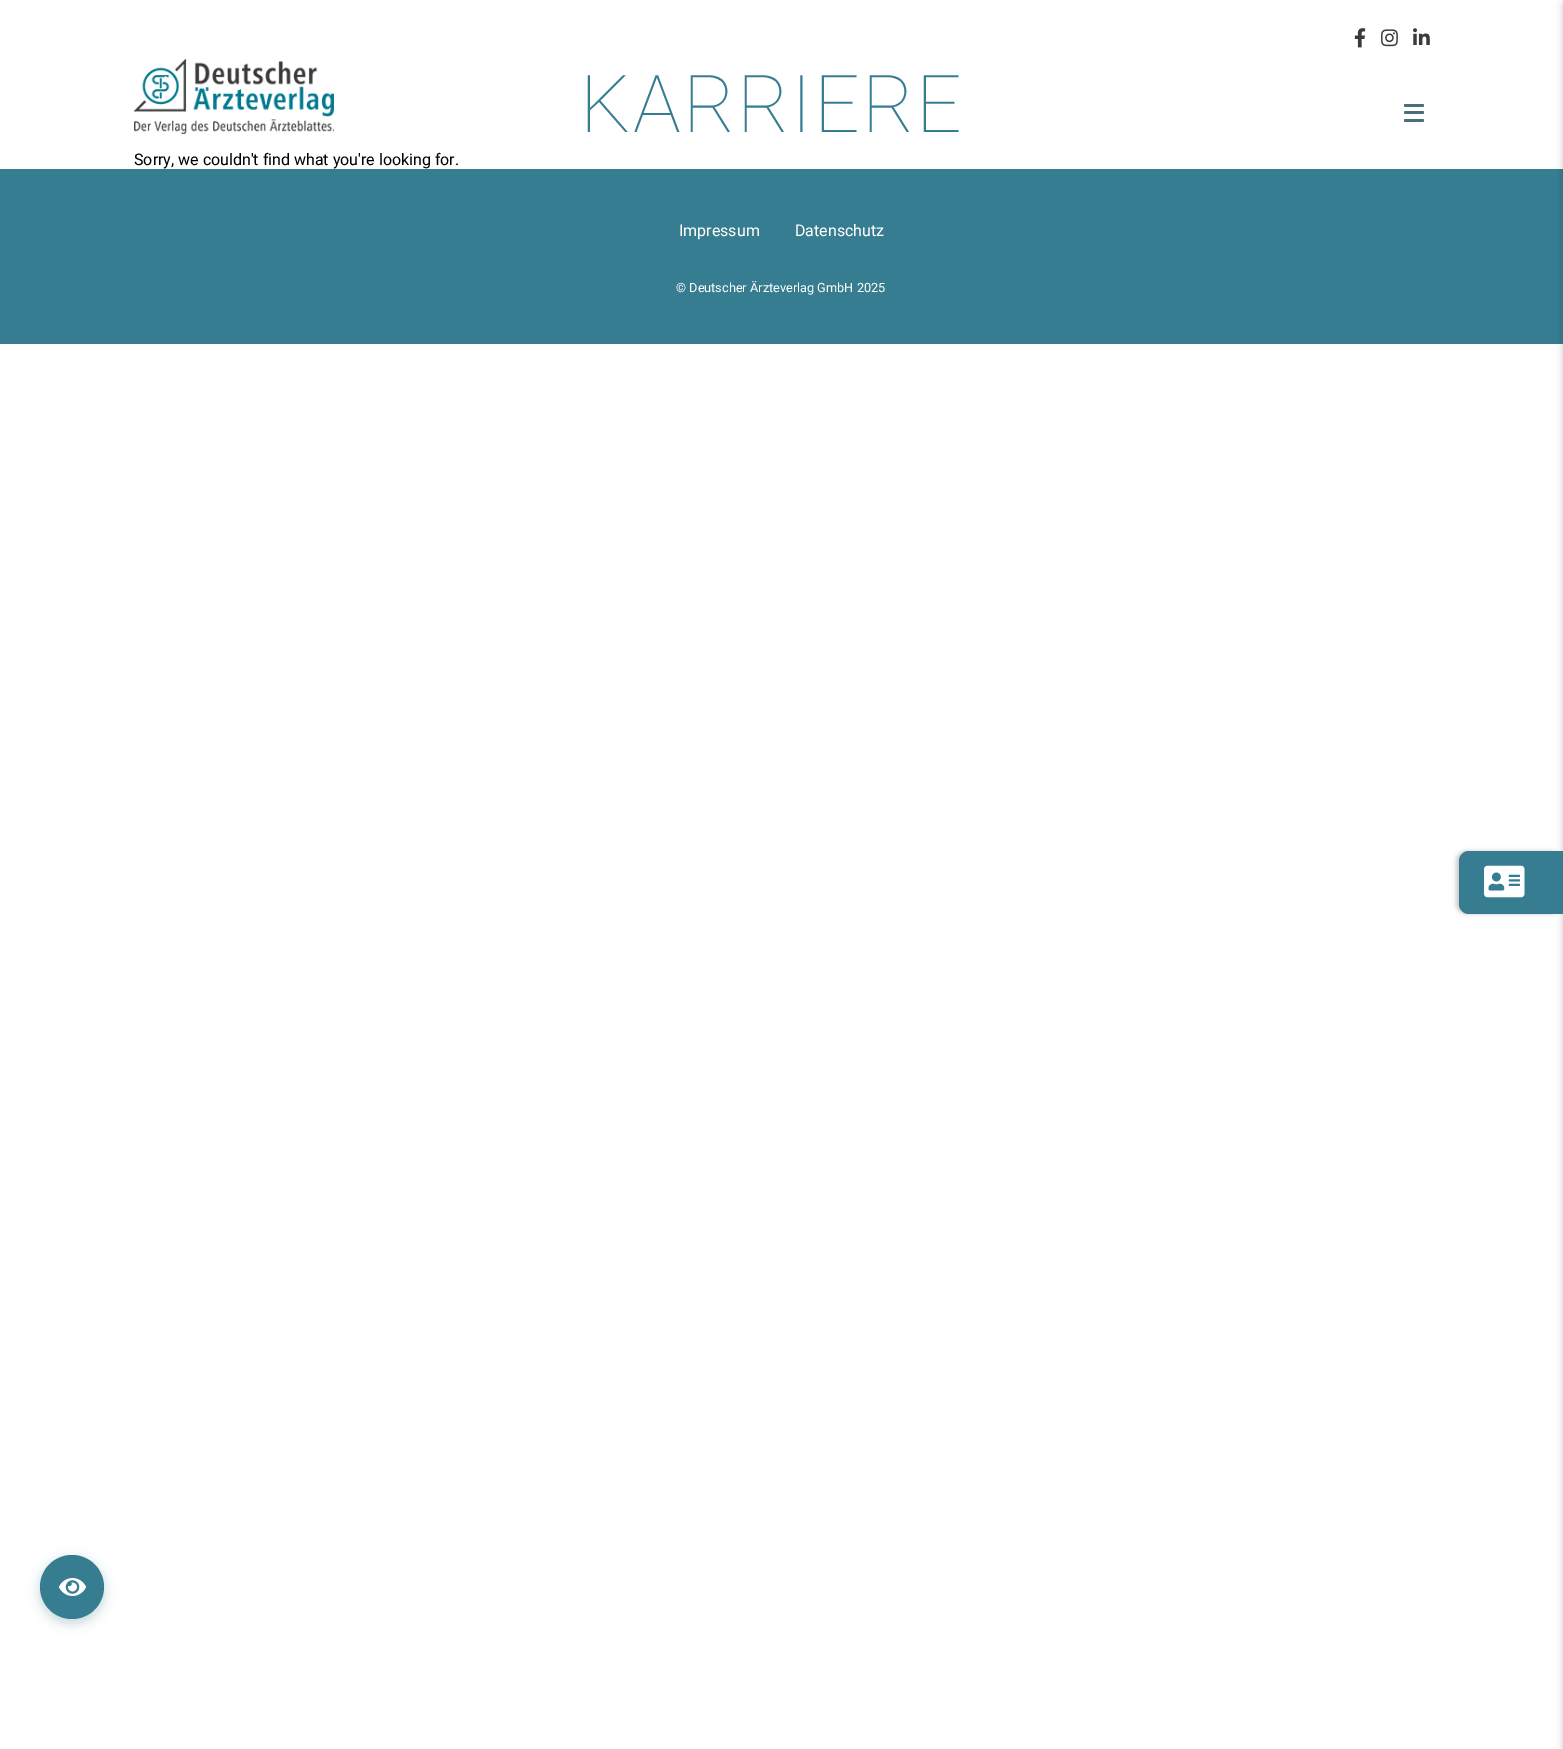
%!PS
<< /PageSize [1563 1749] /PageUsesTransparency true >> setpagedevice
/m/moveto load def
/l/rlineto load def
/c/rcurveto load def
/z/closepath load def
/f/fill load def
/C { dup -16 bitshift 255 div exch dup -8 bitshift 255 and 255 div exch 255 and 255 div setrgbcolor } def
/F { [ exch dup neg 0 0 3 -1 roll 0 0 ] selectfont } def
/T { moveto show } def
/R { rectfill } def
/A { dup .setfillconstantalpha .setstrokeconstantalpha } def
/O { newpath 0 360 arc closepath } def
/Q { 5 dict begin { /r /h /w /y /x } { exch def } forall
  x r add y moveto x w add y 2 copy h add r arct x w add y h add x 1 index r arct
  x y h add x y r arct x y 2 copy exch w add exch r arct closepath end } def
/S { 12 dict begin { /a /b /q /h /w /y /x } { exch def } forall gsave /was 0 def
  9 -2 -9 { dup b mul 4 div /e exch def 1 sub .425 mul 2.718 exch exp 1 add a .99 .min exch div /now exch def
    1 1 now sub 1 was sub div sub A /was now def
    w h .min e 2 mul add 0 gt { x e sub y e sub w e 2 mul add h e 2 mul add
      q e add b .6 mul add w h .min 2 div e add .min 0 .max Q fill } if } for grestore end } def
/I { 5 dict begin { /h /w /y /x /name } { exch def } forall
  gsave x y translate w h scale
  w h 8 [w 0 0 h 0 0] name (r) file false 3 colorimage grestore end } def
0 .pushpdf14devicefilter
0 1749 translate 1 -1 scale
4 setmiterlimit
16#FFFFFF C
0 0 1563 1749 R
(1.rgb) 1354 28 12 20 I
(2.rgb) 1381 29 17 18 I
(3.rgb) 1413 28 17 17 I
(4.rgb) 134 59 200 75 I
/Roboto-Thin 80 F
16#377D91 C
580 132 m 2 0 (KARRIERE) ashow
16#4A6E7A C
1404 104 20 3 1.5 Q f
1404 111 20 3 1.5 Q f
1404 119 20 3 1.5 Q f
16#377D91 C
0 169 1563 175 R
16#000000 C
1563 4 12 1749 0 4 .2 S
1456 851 105 63 10 2 .2 S
16#377D91 C
1469 851 m 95 0 l 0 63 l -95 0 l -5.5 0 -10 -4.5 -10 -10 c 0 -43 l 0 -5.5 4.5 -10 10 -10 c z f
(5.rgb) 1484 865 41 33 I
/Roboto-Regular 16 F
16#000000 C
(Sorry, we couldn't find what you're looking for.) 134 165 T
16#FFFFFF C
(Impressum) 679 236 T
(Datenschutz) 795 236 T
/Roboto-Regular 12.75 F
(© Deutscher Ärzteverlag GmbH 2025) 676 292 T
16#377D91 C
40 1559 64 64 32 6 .3 S
72 1587 32 O f
(6.rgb) 59 1578 27 18 I
.poppdf14devicefilter showpage
